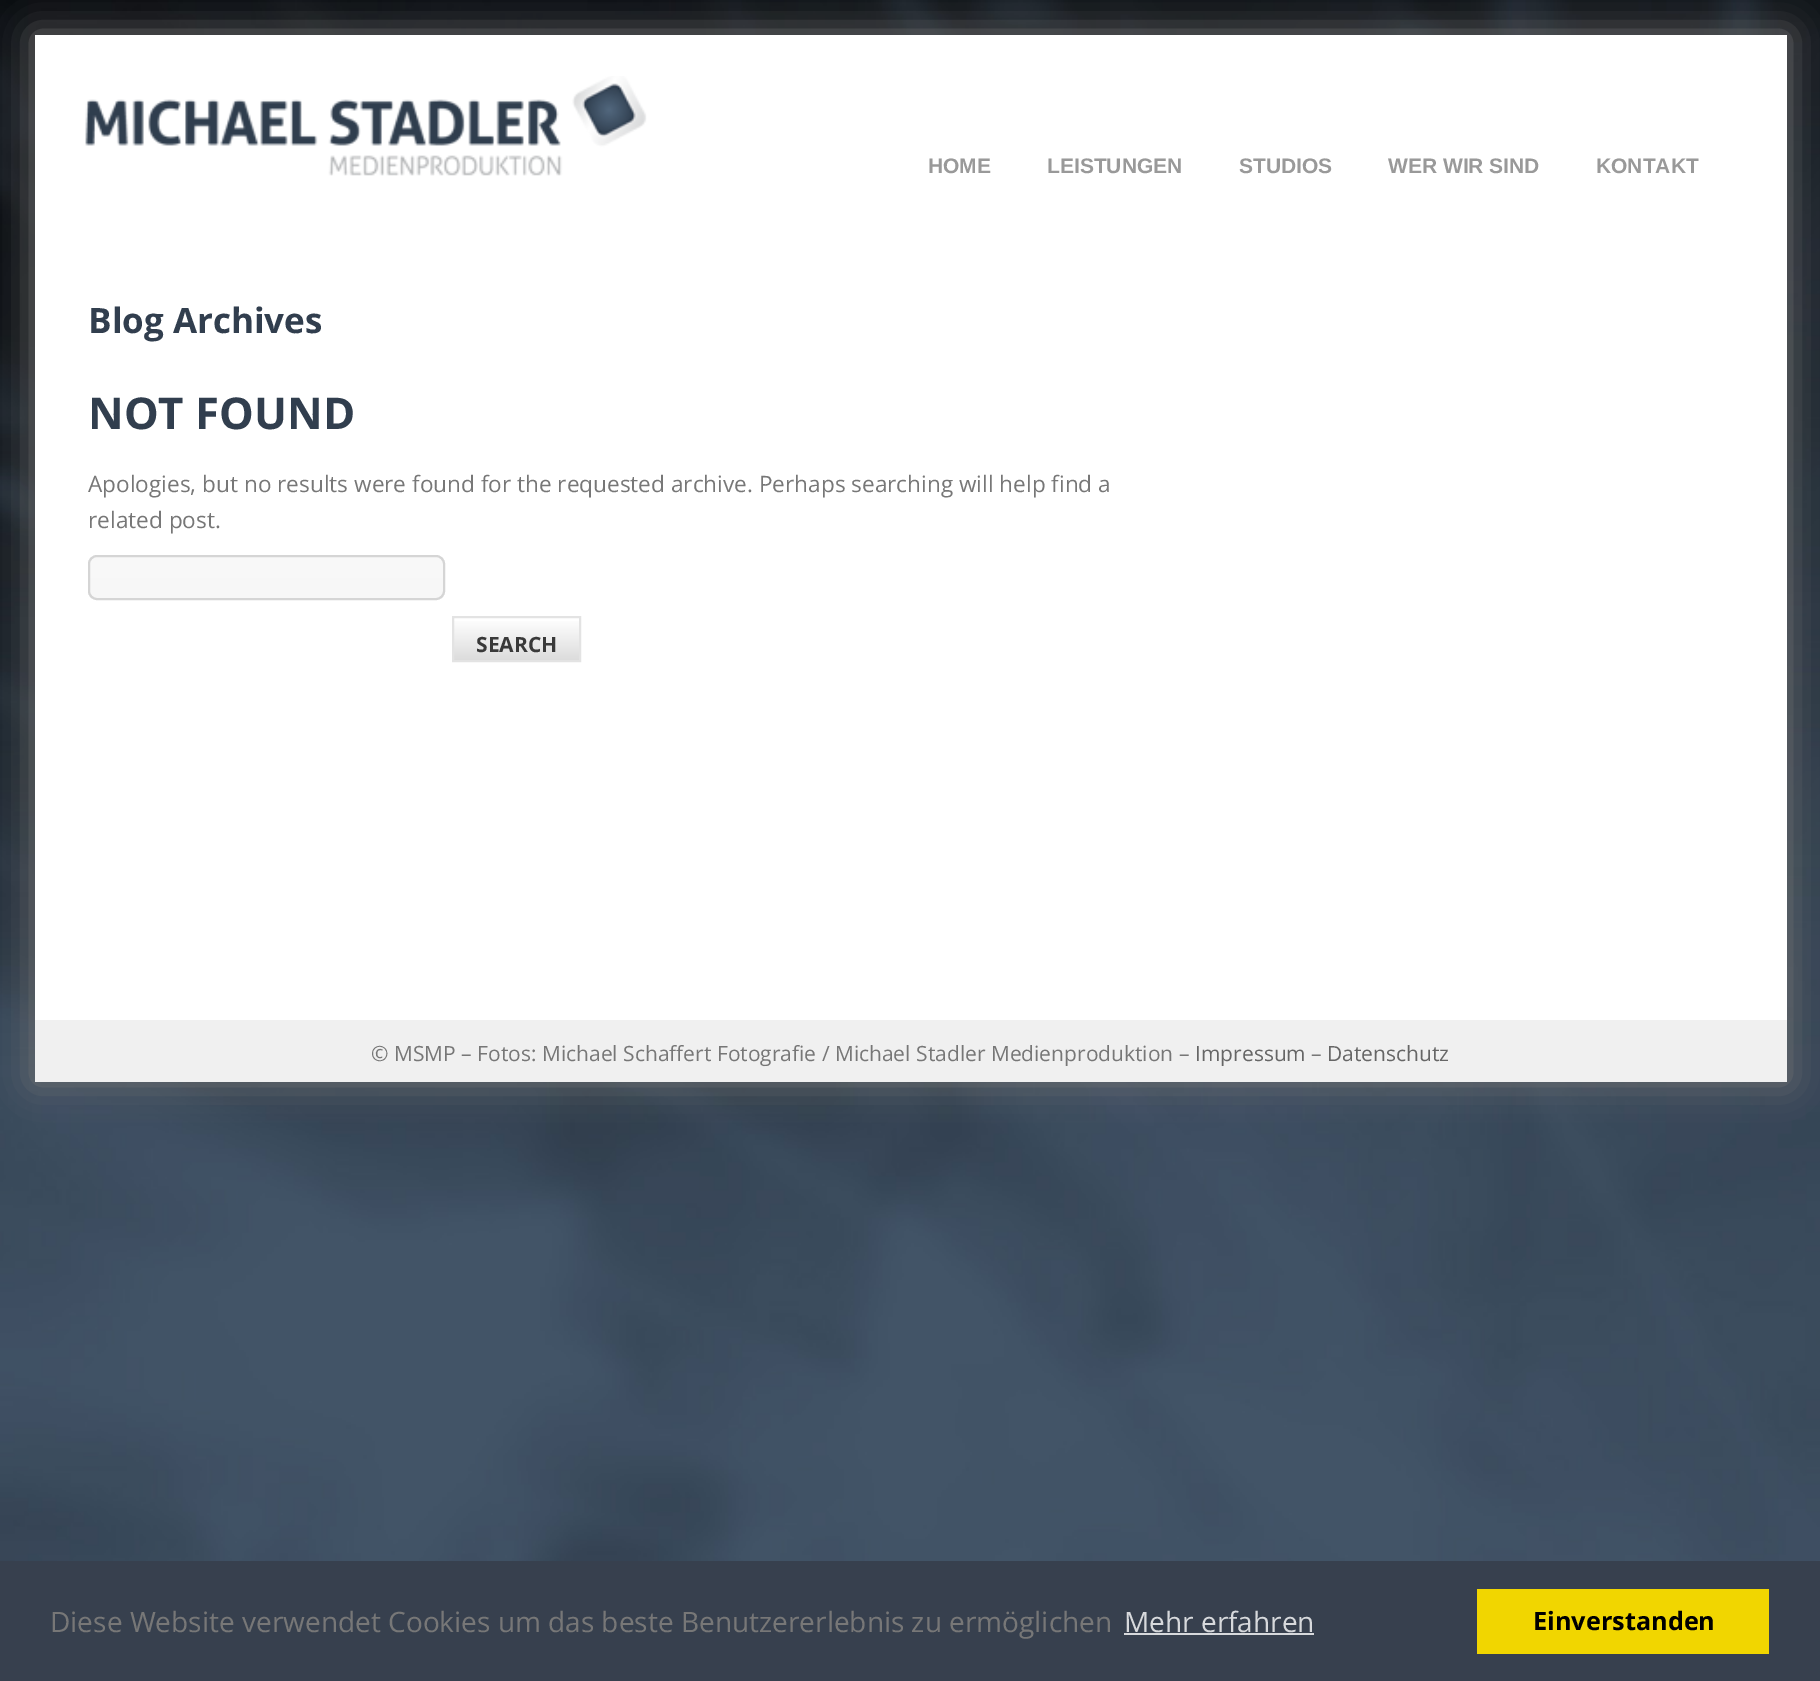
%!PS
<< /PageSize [1820 1681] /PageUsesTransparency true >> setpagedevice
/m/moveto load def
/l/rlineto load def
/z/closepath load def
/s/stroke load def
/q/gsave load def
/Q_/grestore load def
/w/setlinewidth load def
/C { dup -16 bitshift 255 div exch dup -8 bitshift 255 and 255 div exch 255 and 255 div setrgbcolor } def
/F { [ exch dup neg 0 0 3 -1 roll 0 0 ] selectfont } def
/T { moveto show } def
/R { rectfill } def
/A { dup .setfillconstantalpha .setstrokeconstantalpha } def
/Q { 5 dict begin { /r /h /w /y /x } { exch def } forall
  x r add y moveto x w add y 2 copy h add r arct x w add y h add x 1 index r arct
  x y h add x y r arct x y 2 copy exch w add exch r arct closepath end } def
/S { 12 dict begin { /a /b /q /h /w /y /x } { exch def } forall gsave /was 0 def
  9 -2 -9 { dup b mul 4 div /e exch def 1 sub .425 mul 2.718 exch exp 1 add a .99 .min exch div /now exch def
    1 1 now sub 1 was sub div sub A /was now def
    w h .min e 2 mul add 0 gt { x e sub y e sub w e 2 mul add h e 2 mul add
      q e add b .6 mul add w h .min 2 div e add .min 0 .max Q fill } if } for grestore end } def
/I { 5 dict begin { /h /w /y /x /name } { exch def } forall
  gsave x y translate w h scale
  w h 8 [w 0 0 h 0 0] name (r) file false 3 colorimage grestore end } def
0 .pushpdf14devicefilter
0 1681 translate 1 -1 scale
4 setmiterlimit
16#FFFFFF C
0 0 1820 1681 R
(1.rgb) 0 0 1820 1561 I
16#737373 C
33 33 1756 1050 0 17.5 1 S
16#FFFFFF C
35 35 1752 985 R
(2.rgb) 85 76 562 100 I
/LiberationSans-Bold 21 F
16#999999 C
(HOME) 928 173 T
(LEISTUNGEN) 1047 173 T
(STUDIOS) 1239 173 T
(WER WIR SIND) 1388 173 T
(KONTAKT) 1596 173 T
/OpenSans-Bold 35 F
16#313E4E C
(Blog Archives) 88 333 T
/OpenSans-Bold 43.75 F
(NOT FOUND) 88 429 T
/OpenSans-Regular 22.6 F
16#777777 C
(Apologies, but no results were found for the requested archive. Perhaps searching will help find a) 88 492 T
(related post.) 88 528 T
q
88 555 357 45 9 Q clip newpath
q 88 557 m 357 0 l 0 42 l -357 0 l z clip newpath
<< /ShadingType 2 /ColorSpace /DeviceRGB /Coords [89 557 89 599] /Extend [true true] /Function << /FunctionType 2 /Domain [0 1] /C0 [.976 .976 .976] /C1 [.969 .969 .969] /N 1 >> >> shfill Q_
Q_
16#D5D5D5 C
2 w
89 556 355 43 8 Q s
q 454 621 m 125 0 l 0 39 l -125 0 l z clip newpath
<< /ShadingType 2 /ColorSpace /DeviceRGB /Coords [453 618 453 660] /Extend [true true] /Function << /FunctionType 2 /Domain [0 1] /C0 [1 1 1] /C1 [.863 .863 .863] /N 1 >> >> shfill Q_
16#E3E3E3 C
453 617 127 44 rectstroke
/OpenSans-Bold 21 F
16#393939 C
(SEARCH) 476 652 T
16#F0F0F0 C
35 1020 1752 62 R
/OpenSans-Regular 21 F
16#777777 C
(© MSMP – Fotos: Michael Schaffert Fotografie / Michael Stadler Medienproduktion –) 371 1061 T
16#666666 C
(Impressum) 1195 1061 T
16#777777 C
(–) 1311 1061 T
16#666666 C
(Datenschutz) 1327 1061 T
16#37404E C
0 1561 1820 120 R
/OpenSans-Regular 28.05 F
16#777777 C
(Diese Website verwendet Cookies um das beste Benutzererlebnis zu ermöglichen) 50 1632 T
/OpenSans-Regular 28 F
16#D7D9DC C
(Mehr erfahren) 1124 1632 T
1124 1633 190 2 R
16#F1D600 C
1477 1589 292 65 R
/OpenSans-Bold 25.25 F
16#000000 C
(Einverstanden) 1533 1630 T
.poppdf14devicefilter showpage
